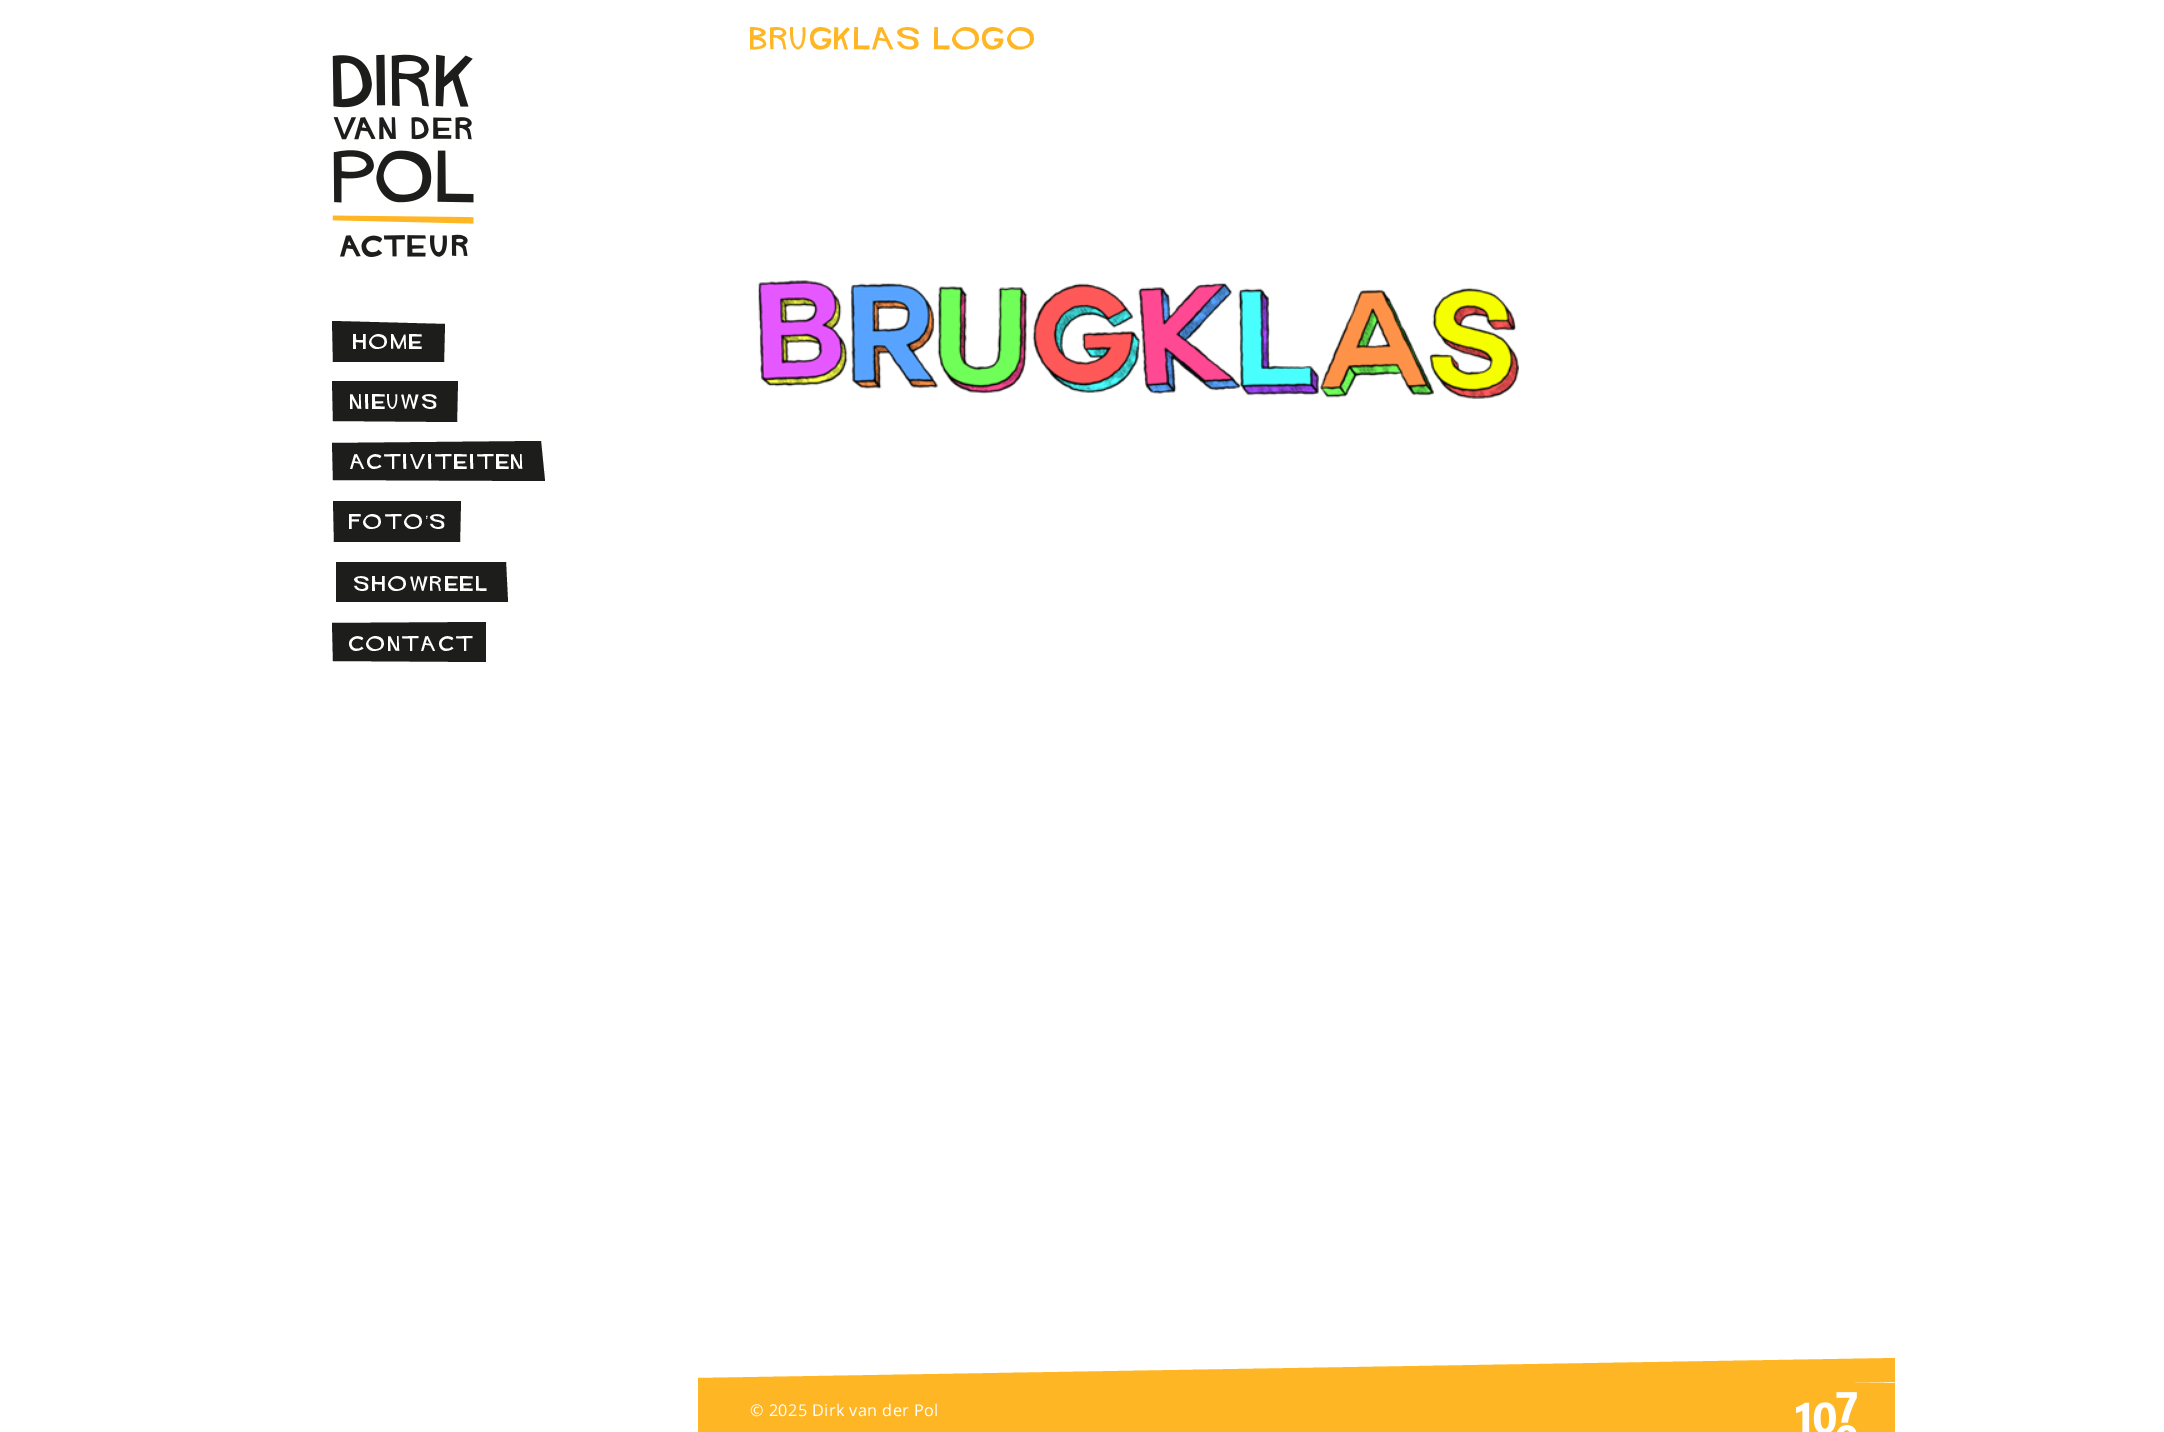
%!PS
<< /PageSize [2164 1432] >> setpagedevice
/m/moveto load def
/l/rlineto load def
/z/closepath load def
/f/fill load def
/q/gsave load def
/Q_/grestore load def
/C { dup -16 bitshift 255 div exch dup -8 bitshift 255 and 255 div exch 255 and 255 div setrgbcolor } def
/F { [ exch dup neg 0 0 3 -1 roll 0 0 ] selectfont } def
/R { rectfill } def
/I { 5 dict begin { /h /w /y /x /name } { exch def } forall
  gsave x y translate w h scale
  w h 8 [w 0 0 h 0 0] name (r) file false 3 colorimage grestore end } def
0 1432 translate 1 -1 scale
4 setmiterlimit
16#FFFFFF C
0 0 2164 1432 R
/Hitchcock-Medium 22.5 F
16#FFB624 C
750 45 m 2.5 0 (Brugklas logo) ashow
(1.rgb) 758 280 761 119 I
(2.rgb) 332 54 142 203 I
16#1D1D1B C
445 324 m -113 -3 l 1 41 l 111 0 l z f
/Hitchcock-Medium 15 F
16#FFFFFF C
353 346 m 2.5 0 (Home) ashow
16#1D1D1B C
457 422 m 1 -41 l -126 0 l 1 40 l z f
16#FFFFFF C
350 406 m 2.5 0 (Nieuws) ashow
16#1D1D1B C
545 481 m -4 -40 l -209 2 l 1 37 l z f
16#FFFFFF C
350 466 m 2.5 0 (Activiteiten) ashow
16#1D1D1B C
461 501 m -128 0 l 1 41 l 126 0 l z f
16#FFFFFF C
349 526 m 2.5 0 (Foto) ashow
/LiberationSans-Regular 15 F
425 526 m 2.5 0 (’) ashow
/Hitchcock-Medium 15 F
430 526 m 2.5 0 (s) ashow
16#1D1D1B C
506 562 m -170 0 l 0 40 l 172 0 l z f
16#FFFFFF C
354 588 m 2.5 0 (Showreel) ashow
16#1D1D1B C
332 623 m 1 38 l 153 1 l 0 -40 l z f
16#FFFFFF C
349 648 m 2.5 0 (Contact) ashow
16#FFB624 C
698 1383 1197 49 R
q
698 1358 1197 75 rectclip
698 1378 m 1200 -20 l 0 24 l -1200 21 l z f
Q_
/OpenSans-Regular 16.25 F
16#FFFFFF C
750 1416 m .4 0 (© 2025 Dirk van der Pol) ashow
(3.rgb) 1796 1392 61 40 I
showpage
